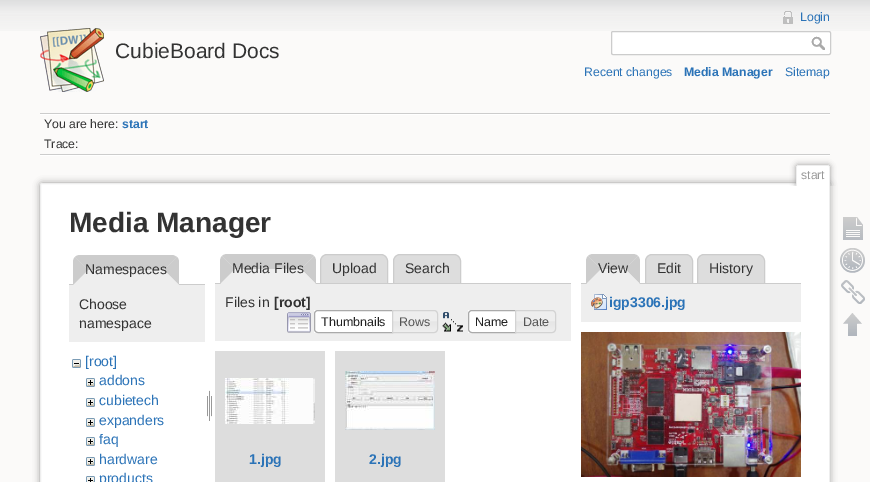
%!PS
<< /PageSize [870 482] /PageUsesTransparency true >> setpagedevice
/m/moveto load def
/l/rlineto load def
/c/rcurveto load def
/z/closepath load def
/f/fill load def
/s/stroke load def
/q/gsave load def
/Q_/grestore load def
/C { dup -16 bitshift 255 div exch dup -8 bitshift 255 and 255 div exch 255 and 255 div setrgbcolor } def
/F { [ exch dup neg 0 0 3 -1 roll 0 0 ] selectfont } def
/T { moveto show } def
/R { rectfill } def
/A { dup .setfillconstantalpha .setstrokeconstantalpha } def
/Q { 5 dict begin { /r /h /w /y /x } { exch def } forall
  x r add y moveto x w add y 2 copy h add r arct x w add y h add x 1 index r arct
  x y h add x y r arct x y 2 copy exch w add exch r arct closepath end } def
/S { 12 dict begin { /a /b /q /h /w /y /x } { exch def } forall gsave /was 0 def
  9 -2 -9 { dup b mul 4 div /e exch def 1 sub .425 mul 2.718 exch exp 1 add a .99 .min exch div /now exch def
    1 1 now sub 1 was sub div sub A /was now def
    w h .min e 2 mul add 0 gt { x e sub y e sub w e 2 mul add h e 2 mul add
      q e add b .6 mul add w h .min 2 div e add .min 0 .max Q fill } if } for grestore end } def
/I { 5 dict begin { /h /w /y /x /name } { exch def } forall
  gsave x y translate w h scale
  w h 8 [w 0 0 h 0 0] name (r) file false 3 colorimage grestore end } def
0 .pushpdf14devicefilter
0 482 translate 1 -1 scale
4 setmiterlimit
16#FBFAF9 C
0 0 870 482 R
(1.rgb) 0 0 870 31 I
(2.rgb) 40 28 64 64 I
/LiberationSans-Regular 21 F
16#333333 C
(CubieBoard Docs) 115 58 T
(3.rgb) 783 11 10 13 I
/LiberationSans-Regular 12.25 F
16#2B73B7 C
(Login) 800 21 T
16#FFFFFF C
611.5 31.5 219 23 1.5 Q q f Q_
16#CCCCCC C
s
(4.rgb) 811 36 14 14 I
16#2B73B7 C
(Recent changes) 584 76 T
/LiberationSans-Bold 12.25 F
(Media Manager) 684 76 T
/LiberationSans-Regular 12.25 F
(Sitemap) 785 76 T
16#CCCCCC C
40 113 790 1 R
16#FFFFFF C
40 155 790 1 R
40 114 790 1 R
16#333333 C
(You are here:) 44 128 T
/LiberationSans-Bold 12.25 F
16#2B73B7 C
(start) 122 128 T
16#CCCCCC C
40 154 790 1 R
/LiberationSans-Regular 12.25 F
16#333333 C
(Trace:) 44 148 T
16#999999 C
40 183 790 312 2 3.5 1 S
16#FFFFFF C
40.5 183.5 789 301 1.5 Q q f Q_
16#EEEEEE C
s
q
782 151 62 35 rectclip
16#999999 C
796 165 34 21 2 3 1 S
Q_
16#FFFFFF C
798 166 m 30 0 l .5 0 1 .5 1 1 c 0 19 l -32 0 l 0 -19 l 0 -.5 .5 -1 1 -1 c z f
16#EEEEEE C
797 165 32 1 R
829 166 1 20 R
796 166 1 20 R
16#999999 C
(start) 801 179 T
/LiberationSans-Bold 28 F
16#333333 C
(Media Manager) 69 232 T
16#CCCCCC C
69 284 136 1 R
16#EEEEEE C
80 255 m 92 0 l 4 0 7 3 7 7 c 0 23 l -106 0 l 0 -23 l 0 -4 3 -7 7 -7 c z f
16#CCCCCC C
80 255 m 93 0 l 4 2 l -13 13 l -76 0 l -13 -13 l 1 -1 3 -2 5 -2 c z f
177 257 m -13 13 l 15 15 l 0 -23 l 0 -2 -1 -4 -2 -5 c z f
16#EEEEEE C
179 285 m -15 -15 l -76 0 l -15 15 l z f
16#CCCCCC C
73 285 m 0 -23 l 0 -2 1 -4 2 -5 c 13 13 l z f
/LiberationSans-Regular 14 F
16#333333 C
(Namespaces) 85 274 T
16#EEEEEE C
69 285 136 57 R
16#333333 C
(Choose) 79 309 T
(namespace) 79 328 T
(5.rgb) 72 359 9 9 I
16#2B73B7 C
([root]) 85 366 T
(6.rgb) 86 378 9 9 I
(addons) 99 385 T
(6.rgb) 86 398 9 9 I
(cubietech) 99 405 T
(6.rgb) 86 418 9 9 I
(expanders) 99 425 T
(6.rgb) 86 437 9 9 I
(faq) 99 444 T
(6.rgb) 86 457 9 9 I
(hardware) 99 464 T
(7.rgb) 86 476 9 6 I
(products) 99 483 T
(8.rgb) 207 390 5 31 I
16#CCCCCC C
227 254 m 82 0 l 2 0 4 1 5 2 c -13 13 l -66 0 l -13 -13 l 1 -1 3 -2 5 -2 c z f
16#DDDDDD C
327 254.5 m 54 0 l 3.5 0 6.5 3 6.5 6.5 c 0 22.5 l -67 0 l 0 -22.5 l 0 -3.5 3 -6.5 6.5 -6.5 c z q f Q_
16#CCCCCC C
s
16#DDDDDD C
400 254.5 m 54 0 l 3.5 0 6.5 3 6.5 6.5 c 0 22.5 l -67 0 l 0 -22.5 l 0 -3.5 3 -6.5 6.5 -6.5 c z q f Q_
16#CCCCCC C
s
215 283 356 1 R
314 256 m -13 13 l 15 15 l 0 -23 l 0 -2 -1 -4 -2 -5 c z f
16#EEEEEE C
316 284 m -15 -15 l -66 0 l -15 15 l z f
16#CCCCCC C
220 284 m 0 -23 l 0 -2 1 -4 2 -5 c 13 13 l z f
16#333333 C
(Media Files) 232 273 T
(Upload) 332 273 T
(Search) 405 273 T
16#EEEEEE C
215 284 356 57 R
16#333333 C
(Files in) 225 307 T
/LiberationSans-Bold 14 F
([root]) 274 307 T
(9.rgb) 287 312 24 21 I
16#FFFFFF C
314 310 78 23 R
16#AAAAAA C
318 310.5 m 74.5 0 l 0 22 l -74.5 0 l -2 0 -3.5 -1.5 -3.5 -3.5 c 0 -15 l 0 -2 1.5 -3.5 3.5 -3.5 c z s
/LiberationSans-Regular 12.5 F
16#212121 C
(Thumbnails) 321 326 T
(10.rgb) 393 310 45 23 I
16#D3D3D3 C
392.5 310.5 m 41.5 0 l 2 0 3.5 1.5 3.5 3.5 c 0 15 l 0 2 -1.5 3.5 -3.5 3.5 c -41.5 0 l z s
16#555555 C
(Rows) 399 326 T
(11.rgb) 442 312 21 20 I
16#FFFFFF C
468 310 47 23 R
16#AAAAAA C
472 310.5 m 43.5 0 l 0 22 l -43.5 0 l -2 0 -3.5 -1.5 -3.5 -3.5 c 0 -15 l 0 -2 1.5 -3.5 3.5 -3.5 c z s
16#212121 C
(Name) 475 326 T
(12.rgb) 516 310 40 23 I
16#D3D3D3 C
515.5 310.5 m 36.5 0 l 2 0 3.5 1.5 3.5 3.5 c 0 15 l 0 2 -1.5 3.5 -3.5 3.5 c -36.5 0 l z s
16#555555 C
(Date) 523 326 T
16#DDDDDD C
215 351 110 131 R
(13.rgb) 225 378 90 46 I
/LiberationSans-Bold 14 F
16#2B73B7 C
(1.jpg) 249 464 T
16#DDDDDD C
335 351 110 131 R
(14.rgb) 345 371 90 59 I
16#2B73B7 C
(2.jpg) 369 464 T
16#CCCCCC C
593 254 m 40 0 l 2 0 4 1 5 2 c -13 13 l -24 0 l -13 -13 l 1 -1 3 -2 5 -2 c z f
16#DDDDDD C
652 254.5 m 34 0 l 3.5 0 6.5 3 6.5 6.5 c 0 22.5 l -47 0 l 0 -22.5 l 0 -3.5 3 -6.5 6.5 -6.5 c z q f Q_
16#CCCCCC C
s
16#DDDDDD C
704 254.5 m 54 0 l 3.5 0 6.5 3 6.5 6.5 c 0 22.5 l -67 0 l 0 -22.5 l 0 -3.5 3 -6.5 6.5 -6.5 c z q f Q_
16#CCCCCC C
s
581 283 220 1 R
638 256 m -13 13 l 15 15 l 0 -23 l 0 -2 -1 -4 -2 -5 c z f
16#EEEEEE C
640 284 m -15 -15 l -24 0 l -15 15 l z f
16#CCCCCC C
586 284 m 0 -23 l 0 -2 1 -4 2 -5 c 13 13 l z f
/LiberationSans-Regular 14 F
16#333333 C
(View) 598 273 T
(Edit) 657 273 T
(History) 709 273 T
16#EEEEEE C
581 284 220 38 R
(15.rgb) 591 294 16 16 I
/LiberationSans-Bold 14 F
16#2B73B7 C
(igp3306.jpg) 609 307 T
(16.rgb) 581 332 220 145 I
(17.rgb) 843 217 20 23 I
(18.rgb) 840 248 25 25 I
(19.rgb) 841 280 24 24 I
(20.rgb) 843 313 19 23 I
.poppdf14devicefilter showpage
